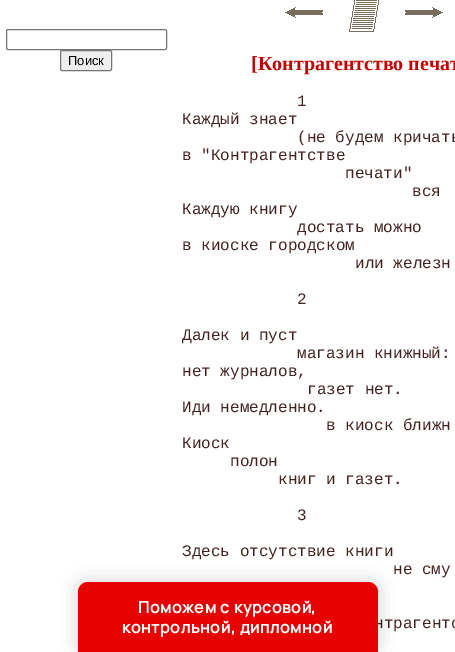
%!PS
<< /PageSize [455 652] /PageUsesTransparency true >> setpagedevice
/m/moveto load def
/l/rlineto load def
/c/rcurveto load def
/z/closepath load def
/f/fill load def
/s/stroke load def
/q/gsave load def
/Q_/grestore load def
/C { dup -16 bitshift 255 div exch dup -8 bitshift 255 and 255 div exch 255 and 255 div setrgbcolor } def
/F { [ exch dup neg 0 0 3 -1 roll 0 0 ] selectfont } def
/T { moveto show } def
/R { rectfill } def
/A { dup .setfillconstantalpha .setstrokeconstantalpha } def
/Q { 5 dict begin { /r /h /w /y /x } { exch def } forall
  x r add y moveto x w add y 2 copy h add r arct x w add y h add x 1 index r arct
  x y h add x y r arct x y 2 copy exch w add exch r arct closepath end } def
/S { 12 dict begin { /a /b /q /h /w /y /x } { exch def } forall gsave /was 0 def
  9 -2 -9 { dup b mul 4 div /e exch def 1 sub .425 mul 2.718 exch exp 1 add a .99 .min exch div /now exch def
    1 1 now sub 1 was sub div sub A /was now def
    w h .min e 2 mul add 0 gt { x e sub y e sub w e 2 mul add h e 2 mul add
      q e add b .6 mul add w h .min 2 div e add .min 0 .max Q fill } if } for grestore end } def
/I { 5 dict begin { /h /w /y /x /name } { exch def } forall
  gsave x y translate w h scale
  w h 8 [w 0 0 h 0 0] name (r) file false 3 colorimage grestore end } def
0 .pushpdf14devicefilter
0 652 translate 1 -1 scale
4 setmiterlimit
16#FFFFFF C
0 0 455 652 R
16#767676 C
6.5 29.5 160 20 1.5 Q s
16#EFEFEF C
60.5 50.5 51 20 1.5 Q q f Q_
16#767676 C
s
/LiberationSans-Regular 13 F
16#000000 C
(Поиск) 68 65 T
(1.rgb) 285 7 38 11 I
(2.rgb) 349 0 30 32 I
(3.rgb) 405 7 38 11 I
/LiberationSerif-Bold 20 F
16#C50000 C
([Контрагентство печат) 251 70 T
/LiberationMono-Regular 16 F
16#442222 C
(1) 297 106 T
(Каждый знает) 182 124 T
(\(не будем кричать) 297 142 T
(в "Контрагентстве) 182 160 T
(печати") 345 178 T
(вся) 412 196 T
(Каждую книгу) 182 214 T
(достать можно) 297 232 T
(в киоске городском) 182 250 T
(или железн) 355 268 T
(2) 297 304 T
(Далек и пуст) 182 340 T
(магазин книжный:) 297 358 T
(нет журналов,) 182 376 T
(газет нет.) 307 394 T
(Иди немедленно.) 182 412 T
(в киоск ближн) 326 430 T
(Киоск) 182 448 T
(полон) 230 466 T
(книг и газет.) 278 484 T
(3) 297 520 T
(Здесь отсутствие книги) 182 556 T
(не сму) 393 574 T
(нтрагентс) 374 628 T
16#000000 C
78 582 300 70 10 9.5 .18 S
16#E60000 C
88 582 m 280 0 l 5.5 0 10 4.5 10 10 c 0 60 l -300 0 l 0 -60 l 0 -5.5 4.5 -10 10 -10 c z f
/Manrope-Bold 16 F
16#FFFFFF C
138 613 m .65 0 (Поможем с курсовой,) ashow
122 633 m .65 0 (контрольной, дипломной) ashow
.poppdf14devicefilter showpage
